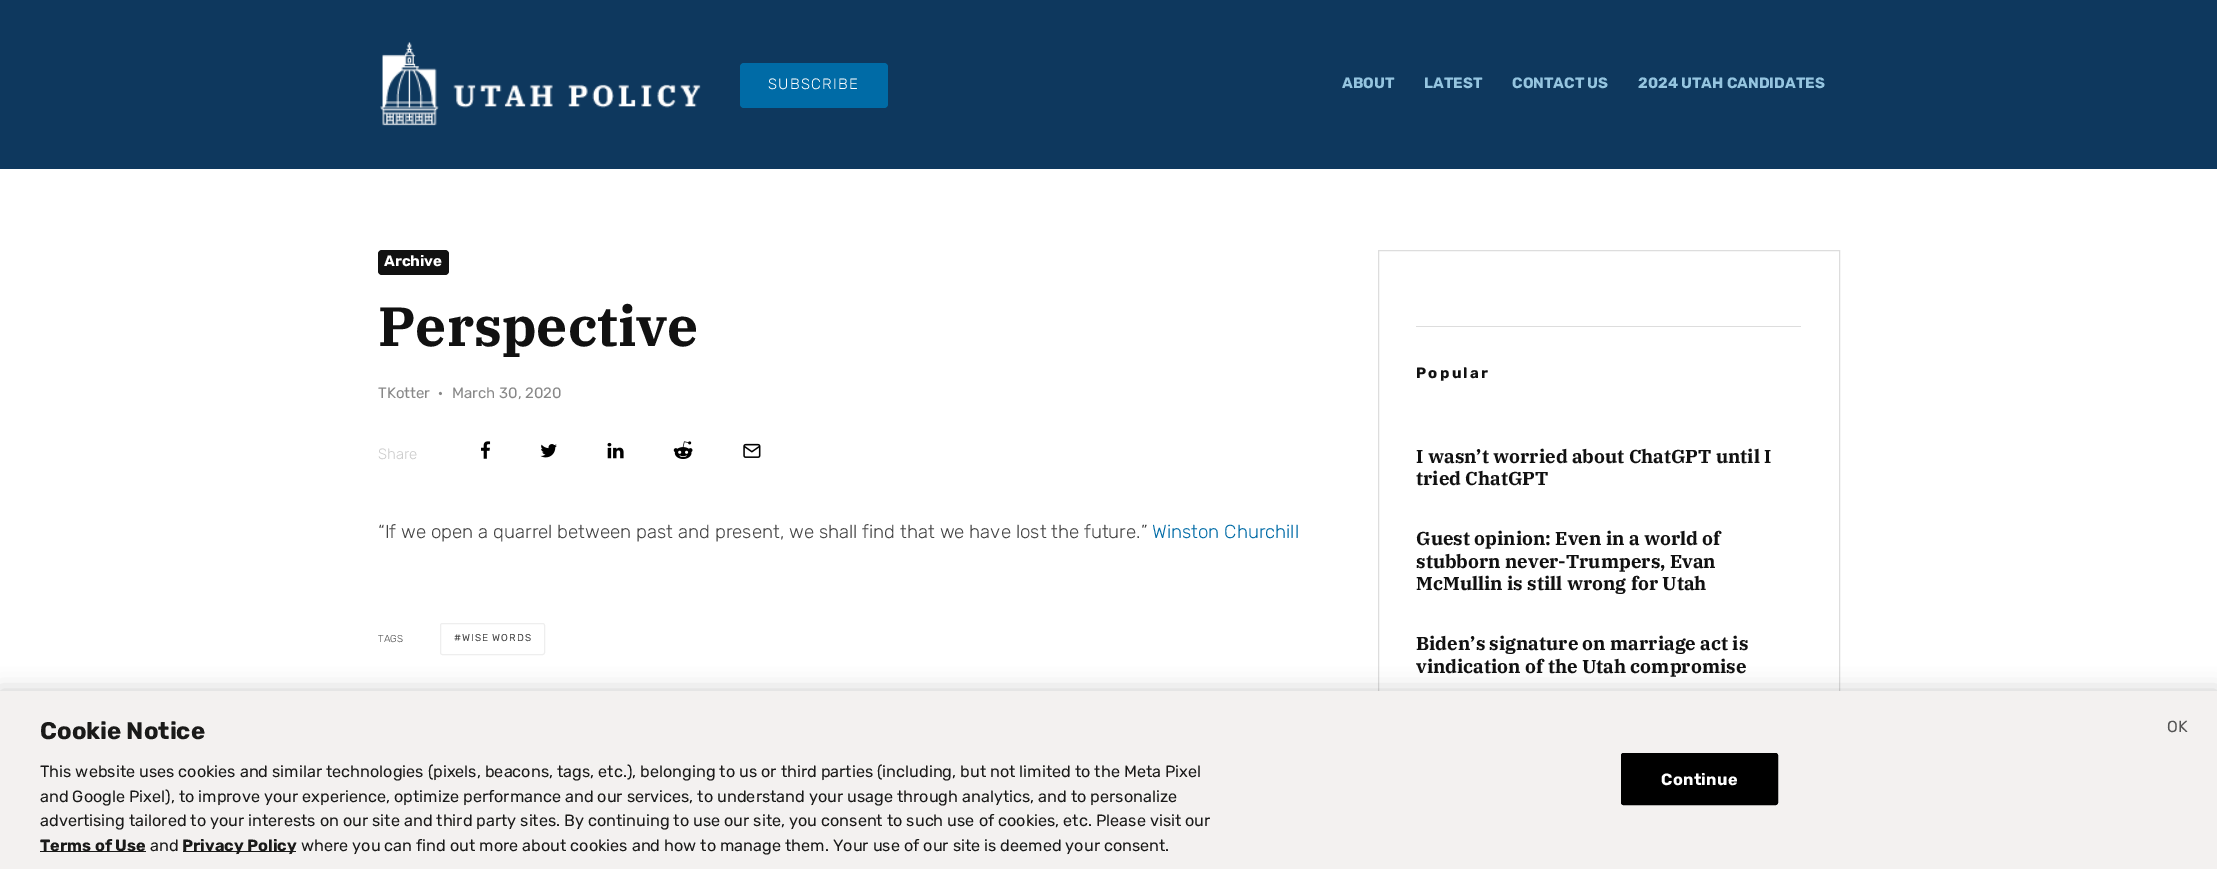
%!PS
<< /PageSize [2217 869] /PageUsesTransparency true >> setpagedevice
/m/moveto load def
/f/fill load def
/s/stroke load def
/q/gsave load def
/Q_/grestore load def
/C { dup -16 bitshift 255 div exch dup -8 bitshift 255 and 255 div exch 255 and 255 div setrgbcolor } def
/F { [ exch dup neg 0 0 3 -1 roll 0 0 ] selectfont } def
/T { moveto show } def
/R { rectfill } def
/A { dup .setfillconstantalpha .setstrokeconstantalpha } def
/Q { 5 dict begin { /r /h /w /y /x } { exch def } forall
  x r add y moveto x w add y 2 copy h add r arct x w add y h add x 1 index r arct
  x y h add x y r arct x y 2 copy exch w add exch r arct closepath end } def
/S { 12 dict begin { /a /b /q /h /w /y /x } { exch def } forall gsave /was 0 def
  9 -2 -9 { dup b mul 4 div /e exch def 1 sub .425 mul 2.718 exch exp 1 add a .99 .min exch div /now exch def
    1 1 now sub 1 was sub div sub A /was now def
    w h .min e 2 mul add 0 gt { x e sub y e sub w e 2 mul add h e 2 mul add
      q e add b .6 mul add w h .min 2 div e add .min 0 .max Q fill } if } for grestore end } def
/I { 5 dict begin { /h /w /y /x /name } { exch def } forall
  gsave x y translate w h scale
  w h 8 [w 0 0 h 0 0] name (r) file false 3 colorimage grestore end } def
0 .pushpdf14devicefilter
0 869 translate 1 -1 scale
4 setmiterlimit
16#FFFFFF C
0 0 2217 869 R
16#0E385E C
0 0 2217 169 R
(1.rgb) 380 42 321 84 I
16#006BA6 C
740 63 148 45 4 Q f
/Rubik-Light 15 F
16#FFFFFF C
768 89 m 1.25 0 (SUBSCRIBE) ashow
/Rubik-Bold 15 F
16#95C5E0 C
(ABOUT) 1342 88 T
(LATEST) 1424 88 T
(CONTACT US) 1512 88 T
(2024 UTAH CANDIDATES) 1638 88 T
16#111111 C
378 250 71 25 4 Q f
16#FFFFFF C
(Archive) 384 266 T
/IBMPlexSerif-Bold 55 F
16#111111 C
(Perspective) 378 346 T
/Rubik-Regular 15 F
16#888888 C
(TKotter) 378 398 T
(·) 438 398 T
(March 30, 2020) 452 398 T
/Rubik-Light 15 F
16#CCCCCC C
(Share) 378 459 T
(2.rgb) 481 441 10 18 I
(3.rgb) 540 444 17 14 I
(4.rgb) 607 442 17 17 I
(5.rgb) 673 441 20 18 I
(6.rgb) 743 443 18 15 I
/Rubik-Light 18.75 F
16#444444 C
(“If we open a quarrel between past and present, we shall find that we have lost the future.”) 378 538 T
16#006BA6 C
(Winston Churchill) 1152 538 T
/Rubik-Light 10 F
16#444444 C
(TAGS) 378 642 T
16#EEEEEE C
440.5 623.5 104 31 2 Q s
/Rubik-Regular 10 F
16#444444 C
454 641 m 1 0 (#WISE WORDS) ashow
16#DDDDDD C
1378.5 250.5 461 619 rectstroke
1416 326 385 1 R
/Rubik-Bold 15 F
16#111111 C
1416 378 m 2.25 0 (Popular) ashow
/IBMPlexSerif-Bold 18.75 F
(I wasn’t worried about ChatGPT until I) 1416 463 T
(tried ChatGPT) 1416 485 T
(Guest opinion: Even in a world of) 1416 545 T
(stubborn never-Trumpers, Evan) 1416 568 T
(McMullin is still wrong for Utah) 1416 590 T
(Biden’s signature on marriage act is) 1416 650 T
(vindication of the Utah compromise) 1416 673 T
16#000000 C
0 691 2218 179 0 11 .2 S
16#F3F1F0 C
0 691 2217 178 R
/Rubik-Bold 24 F
16#1A1A19 C
(Cookie Notice) 40 739 T
/Rubik-Regular 16.25 F
(This website uses cookies and similar technologies \(pixels, beacons, tags, etc.\), belonging to us or third parties \(including, but not limited to the Meta Pixel) 40 777 T
(and Google Pixel\), to improve your experience, optimize performance and our services, to understand your usage through analytics, and to personalize) 40 802 T
(advertising tailored to your interests on our site and third party sites.) 40 826 T
(By continuing to use our site, you consent to such use of cookies, etc. Please visit our) 564 826 T
40 851 106 1 R
/Rubik-Bold 16.25 F
(Terms of Use) 40 851 T
/Rubik-Regular 16.25 F
(and) 150 851 T
183 851 113 1 R
/Rubik-Bold 16.25 F
(Privacy Policy) 182 851 T
/Rubik-Regular 16.25 F
(where you can find out more about cookies and how to manage them. Your use of our site is deemed your consent.) 301 851 T
16#000000 C
1621.5 753.5 156 51 2 Q q f Q_
s
/Rubik-Bold 16.25 F
16#FFFFFF C
1661 785 m .25 0 (Continue) ashow
/Rubik-Regular 16 F
16#555555 C
(OK) 2167 732 T
.poppdf14devicefilter showpage
